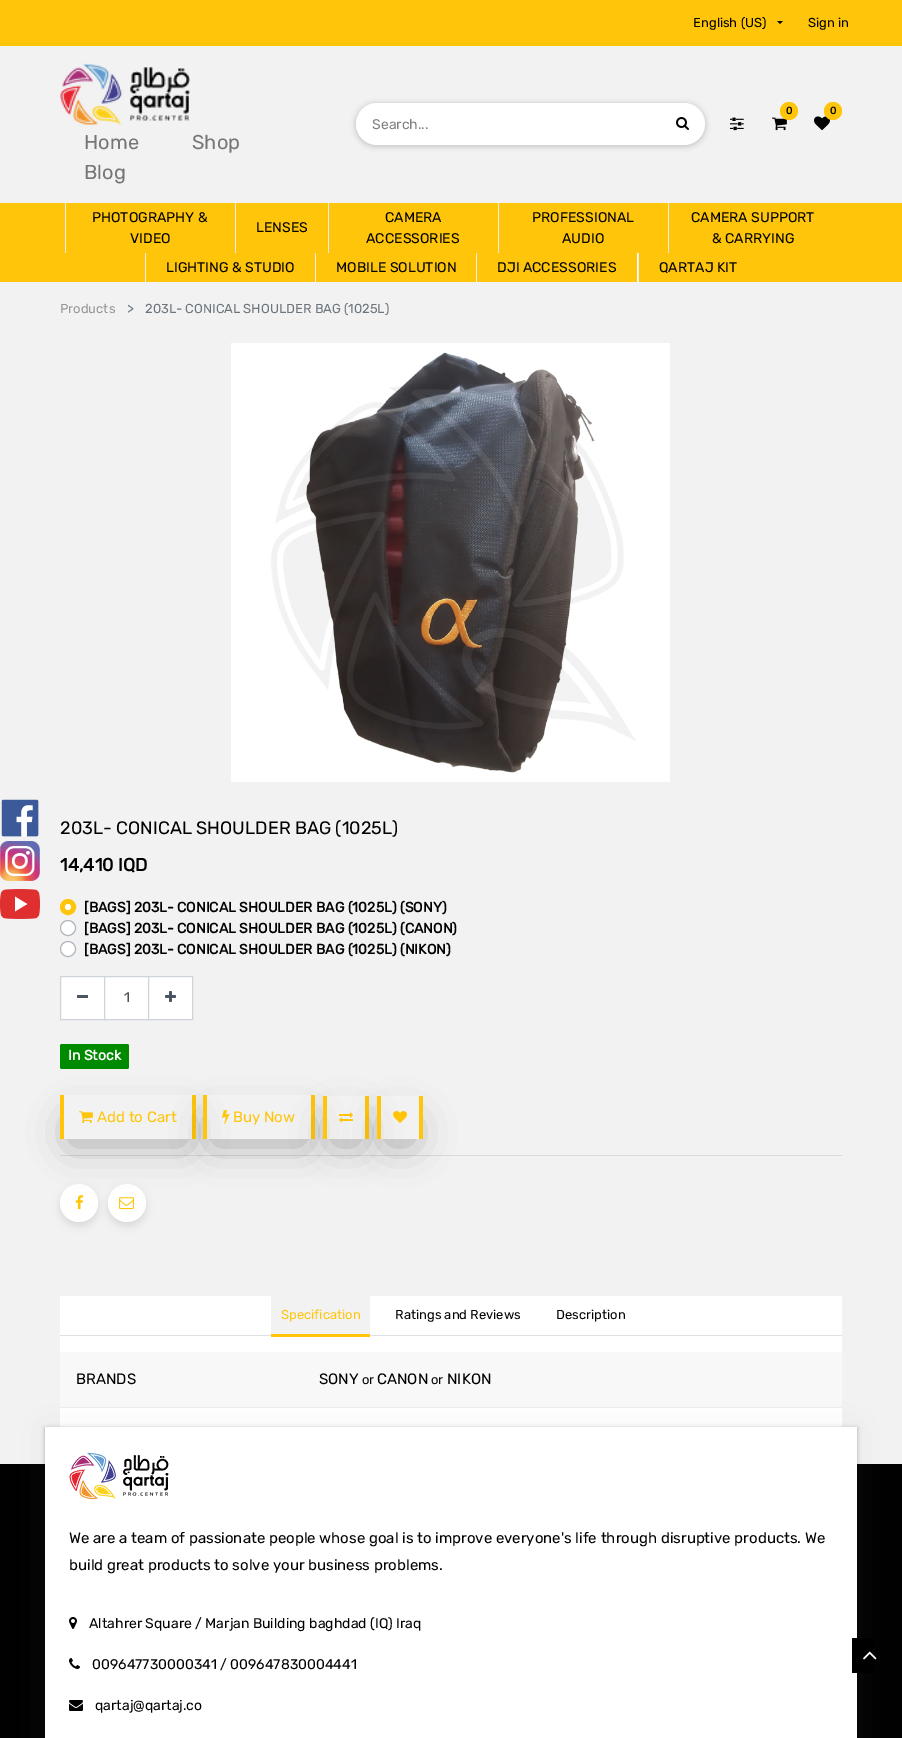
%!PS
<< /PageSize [902 1738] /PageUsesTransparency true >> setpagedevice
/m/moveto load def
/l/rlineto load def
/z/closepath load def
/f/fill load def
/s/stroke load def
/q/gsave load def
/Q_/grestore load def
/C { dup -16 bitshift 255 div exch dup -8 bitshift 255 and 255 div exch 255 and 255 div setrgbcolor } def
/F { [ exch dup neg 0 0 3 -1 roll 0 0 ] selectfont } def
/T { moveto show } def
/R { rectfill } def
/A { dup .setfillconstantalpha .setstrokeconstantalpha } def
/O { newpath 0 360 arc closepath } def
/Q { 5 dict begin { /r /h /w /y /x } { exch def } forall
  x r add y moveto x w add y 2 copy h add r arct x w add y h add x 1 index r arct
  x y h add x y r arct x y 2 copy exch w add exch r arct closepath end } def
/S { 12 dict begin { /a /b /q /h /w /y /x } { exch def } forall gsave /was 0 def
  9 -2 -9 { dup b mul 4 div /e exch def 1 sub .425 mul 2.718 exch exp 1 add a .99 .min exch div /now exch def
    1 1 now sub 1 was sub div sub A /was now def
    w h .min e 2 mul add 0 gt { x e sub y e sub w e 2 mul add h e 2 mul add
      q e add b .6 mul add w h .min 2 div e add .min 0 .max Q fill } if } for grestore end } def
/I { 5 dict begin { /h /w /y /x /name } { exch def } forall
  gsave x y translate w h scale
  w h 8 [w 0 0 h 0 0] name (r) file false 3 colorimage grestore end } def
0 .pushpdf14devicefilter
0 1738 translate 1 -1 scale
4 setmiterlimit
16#F2F2F2 C
0 0 902 1738 R
16#FFC50A C
0 0 902 46 R
/Rubik-Light 13 F
16#000000 C
(English \(US\)) 693 27 T
777 21 m 6 0 l -3 3 l z f
(Sign in) 808 27 T
(1.rgb) 772 117 15 14 I
16#FFC50A C
789 111 9 O f
/Rubik-Bold 10 F
16#000000 C
(0) 786 114 T
(2.rgb) 814 116 16 15 I
16#FFC50A C
833 111 9 O f
16#000000 C
(0) 830 114 T
16#202124 C
355 103 351 44 22 2.5 .2 S
16#FFFFFF C
356 103 349 42 21 Q f
/Rubik-Light 14 F
16#808080 C
(Search...) 372 129 T
(3.rgb) 676 117 13 13 I
(4.rgb) 730 117 14 14 I
(5.rgb) 60 63 130 63 I
/Rubik-Light 20 F
16#777777 C
(Home) 84 149 T
(Shop) 192 149 T
(Blog) 84 179 T
16#FFC50A C
0 203 902 79 R
16#EDEDED C
65 203 1 50 R
/Rubik-Light 14 F
16#000000 C
(PHOTOGRAPHY &) 92 222 T
(VIDEO) 130 243 T
16#EDEDED C
235 203 1 50 R
16#000000 C
(LENSES) 256 232 T
16#EDEDED C
328 203 1 50 R
16#000000 C
(CAMERA) 385 222 T
(ACCESSORIES) 366 243 T
16#EDEDED C
498 203 1 50 R
16#000000 C
(PROFESSIONAL) 532 222 T
(AUDIO) 562 243 T
16#EDEDED C
668 203 1 50 R
16#000000 C
(CAMERA SUPPORT) 691 222 T
(& CARRYING) 712 243 T
16#EDEDED C
145 253 1 29 R
16#000000 C
(LIGHTING & STUDIO) 166 272 T
16#EDEDED C
315 253 1 29 R
16#000000 C
(MOBILE SOLUTION) 336 272 T
16#FFFFFF C
637 253 1 29 R
16#EDEDED C
476 253 1 29 R
16#000000 C
(DJI ACCESSORIES) 497 272 T
16#EDEDED C
638 253 1 29 R
16#000000 C
(QARTAJ KIT) 659 272 T
(6.rgb) 1 799 38 38 I
(7.rgb) 0 841 40 40 I
(8.rgb) 0 889 40 30 I
/Rubik-Light 13 F
16#969696 C
(Products) 60 313 T
/Rubik-Light 14 F
16#6C757D C
(>) 127 313 T
/Rubik-Light 13 F
(203L- CONICAL SHOULDER BAG \(1025L\)) 145 313 T
(9.rgb) 231 343 439 439 I
/Rubik-Light 18 F
16#000000 C
(203L- CONICAL SHOULDER BAG \(1025L\)) 60 834 T
/Rubik-Bold 18 F
(14,410 IQD) 60 871 T
16#FFC50A C
68 907 7.5 O q f Q_
s
/Rubik-Bold 14 F
16#000000 C
([BAGS] 203L- CONICAL SHOULDER BAG \(1025L\) \(SONY\)) 84 912 T
16#FFFFFF C
68 907 3 O f
68 928 7.5 O q f Q_
16#ADB5BD C
s
16#000000 C
([BAGS] 203L- CONICAL SHOULDER BAG \(1025L\) \(CANON\)) 84 933 T
16#FFFFFF C
68 949 7.5 O q f Q_
16#ADB5BD C
s
16#000000 C
([BAGS] 203L- CONICAL SHOULDER BAG \(1025L\) \(NIKON\)) 84 954 T
16#FFFFFF C
60.5 976.5 m 44 0 l 0 43 l -44 0 l z q f Q_
16#CED4DA C
s
16#4C5462 C
77 995 11 3 R
16#FFFFFF C
104.5 976.5 m 44 0 l 0 43 l -44 0 l z q f Q_
16#CED4DA C
s
/Rubik-Light 14 F
16#495057 C
(1) 124 1002 T
16#FFFFFF C
148.5 976.5 m 44 0 l 0 43 l -44 0 l z q f Q_
16#CED4DA C
s
(10.rgb) 165 991 11 11 I
16#008A00 C
60 1044 69 25 2 Q f
/Rubik-Bold 14 F
16#FFFFFF C
(In Stock) 68 1060 T
16#DADADA C
60 1155 782 1 R
16#000000 C
60 1188 38 38 19 4 .1 S
16#FFFFFF C
79 1203 19 O f
(15.rgb) 75 1195 9 15 I
16#000000 C
108 1188 38 38 19 4 .1 S
16#FFFFFF C
127 1203 19 O f
(16.rgb) 119 1197 15 13 I
q
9 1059 m 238 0 l 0 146 l -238 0 l z 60 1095 m 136 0 l 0 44 l -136 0 l z eoclip newpath
16#000000 C
70 1120 116 24 0 20 .3 S
Q_
16#FFC50A C
60 1095 4 44 R
(11.rgb) 79 1111 14 13 I
/Rubik-Light 15 F
(Add to Cart) 97 1122 T
192 1095 4 44 R
q
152 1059 m 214 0 l 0 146 l -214 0 l z 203 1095 m 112 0 l 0 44 l -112 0 l z eoclip newpath
16#000000 C
213 1120 92 24 0 20 .3 S
Q_
203 1095 4 44 R
(12.rgb) 222 1110 8 15 I
(Buy Now) 233 1122 T
311 1095 4 44 R
q
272 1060 m 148 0 l 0 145 l -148 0 l z 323 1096 m 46 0 l 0 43 l -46 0 l z eoclip newpath
16#000000 C
333 1121 26 23 0 20 .3 S
Q_
323 1096 4 43 R
(13.rgb) 339 1112 14 11 I
365 1096 4 43 R
q
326 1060 m 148 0 l 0 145 l -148 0 l z 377 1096 m 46 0 l 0 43 l -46 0 l z eoclip newpath
16#000000 C
387 1121 26 23 0 20 .3 S
Q_
377 1096 4 43 R
(14.rgb) 393 1111 14 12 I
419 1096 4 43 R
16#FFFFFF C
60 1296 782 131 R
16#DEE2E6 C
60 1335 782 1 R
16#F2F2F2 C
271 1296 99 38 R
16#FFC50A C
271 1334 99 3 R
/Rubik-Light 13 F
(Specification) 281 1319 T
16#000000 C
(Ratings and Reviews) 395 1319 T
(Description) 556 1319 T
16#F8F8F8 C
60 1352 782 55 R
/Rubik-Light 15 F
16#000000 C
(BRANDS) 76 1384 T
16#EDEDED C
60 1407 782 1 R
16#000000 C
(SONY) 319 1384 T
/Rubik-Light 13 F
(or) 362 1384 T
/Rubik-Light 15 F
(CANON) 377 1384 T
/Rubik-Light 13 F
(or) 431 1384 T
/Rubik-Light 15 F
(NIKON) 447 1384 T
0 1464 902 274 R
16#808080 C
45 1427 812 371 0 20 .1 S
16#000000 C
45 1428 812 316 0 2 .3 S
16#FFFFFF C
45 1427 812 311 R
(17.rgb) 69 1452 100 48 I
16#000000 C
(We are a team of passionate people whose goal is to improve everyone's life through disruptive products. We) 69 1543 T
(build great products to solve your business problems.) 69 1570 T
(18.rgb) 69 1617 8 12 I
/Rubik-Light 14 F
(Altahrer Square / Marjan Building baghdad \(IQ\) Iraq) 89 1628 T
(19.rgb) 69 1658 11 11 I
(009647730000341 / 009647830004441) 92 1669 T
(20.rgb) 69 1700 14 11 I
(qartaj@qartaj.co) 95 1710 T
852 1638 22 35 R
(21.rgb) 863 1651 14 9 I
.poppdf14devicefilter showpage
